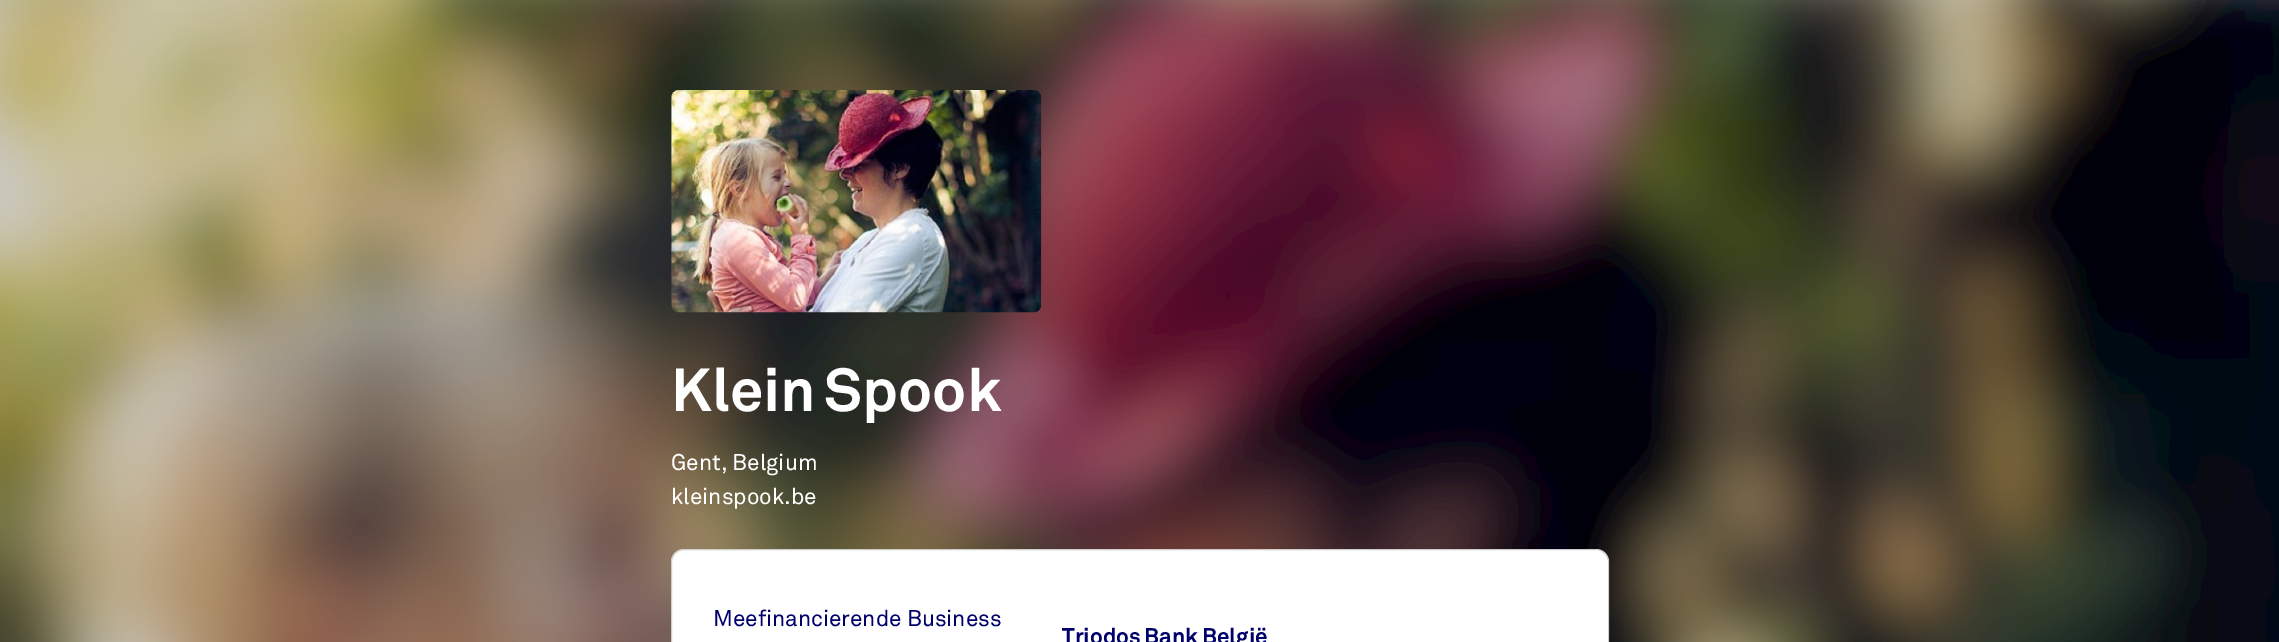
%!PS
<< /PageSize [2279 642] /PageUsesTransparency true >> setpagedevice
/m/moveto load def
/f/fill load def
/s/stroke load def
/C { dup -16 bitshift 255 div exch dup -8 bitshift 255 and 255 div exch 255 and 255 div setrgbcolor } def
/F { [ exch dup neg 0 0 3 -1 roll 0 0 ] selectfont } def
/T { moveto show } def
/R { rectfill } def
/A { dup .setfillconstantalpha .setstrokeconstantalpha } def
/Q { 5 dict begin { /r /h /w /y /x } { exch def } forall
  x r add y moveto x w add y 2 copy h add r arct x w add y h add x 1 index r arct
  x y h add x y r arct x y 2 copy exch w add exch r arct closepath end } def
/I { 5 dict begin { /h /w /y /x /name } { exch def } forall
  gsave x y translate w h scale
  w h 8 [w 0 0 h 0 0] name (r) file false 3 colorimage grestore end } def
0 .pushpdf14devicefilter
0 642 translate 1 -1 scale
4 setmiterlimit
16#FFFFFF C
0 0 2279 642 R
(1.rgb) 0 0 2279 642 I
(2.rgb) 671 90 371 223 I
/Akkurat-Bold 60 F
671 411 m -4 0 32 (Klein Spook) widthshow
/Akkurat-Regular 22.5 F
(Gent, Belgium) 671 470 T
(kleinspook.be) 671 504 T
671 549 938 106 13 Q f
0.5 A
16#9B9B9B C
671.5 549.5 937 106 12.5 Q s
1 A
16#00006B C
(Meefinancierende Business) 713 626 T
/Akkurat-Bold 22.5 F
1062 644 m -1 0 32 (Triodos Bank België) widthshow
.poppdf14devicefilter showpage
